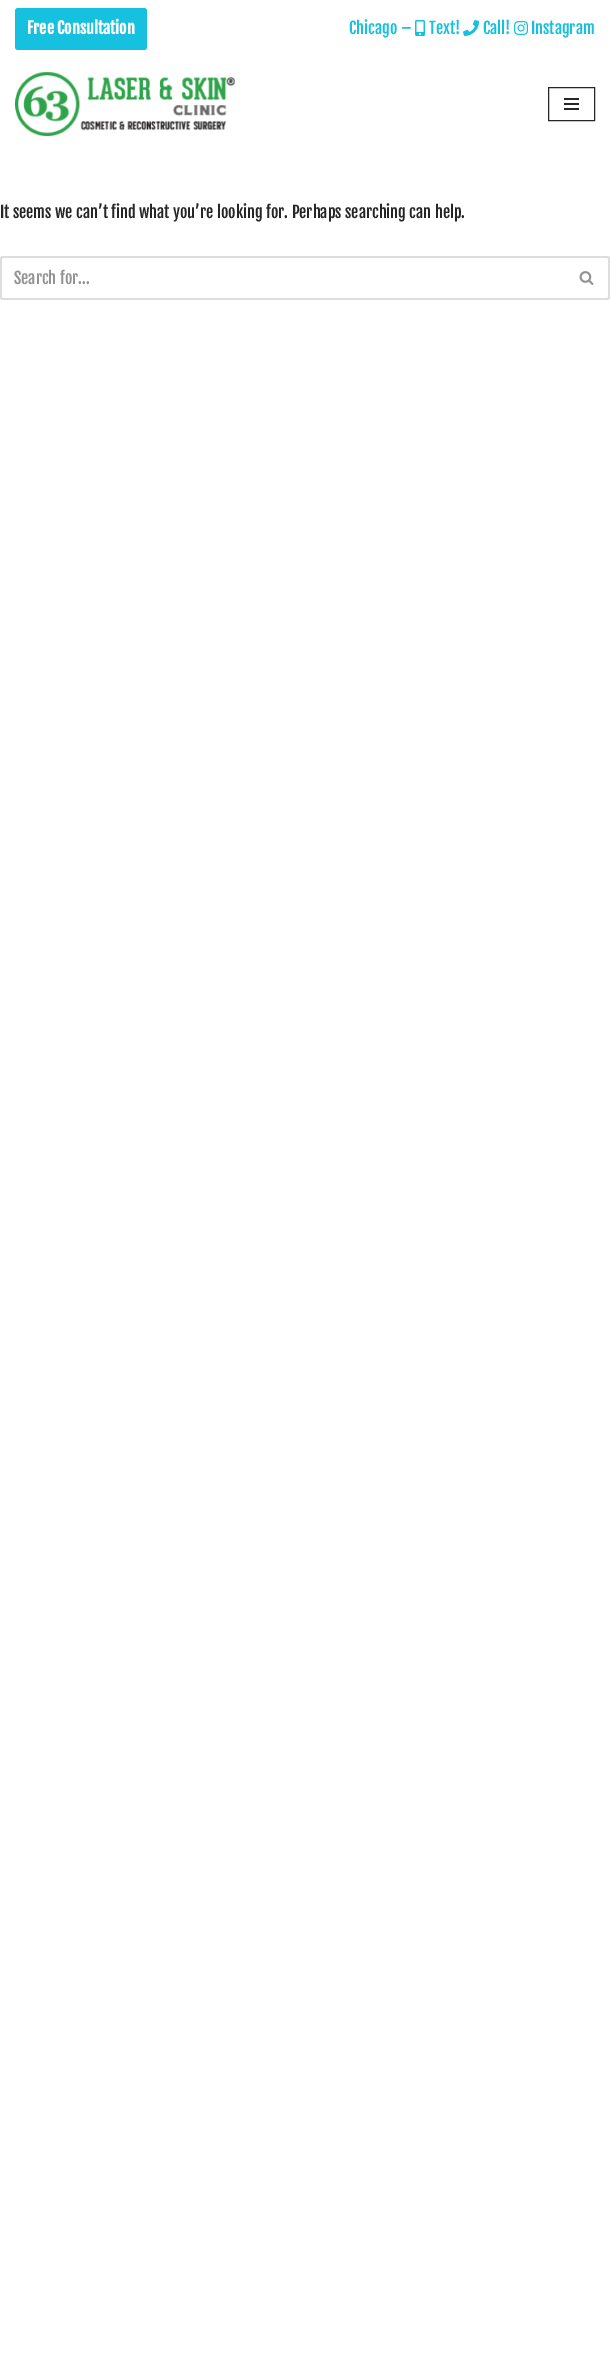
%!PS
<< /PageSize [610 2367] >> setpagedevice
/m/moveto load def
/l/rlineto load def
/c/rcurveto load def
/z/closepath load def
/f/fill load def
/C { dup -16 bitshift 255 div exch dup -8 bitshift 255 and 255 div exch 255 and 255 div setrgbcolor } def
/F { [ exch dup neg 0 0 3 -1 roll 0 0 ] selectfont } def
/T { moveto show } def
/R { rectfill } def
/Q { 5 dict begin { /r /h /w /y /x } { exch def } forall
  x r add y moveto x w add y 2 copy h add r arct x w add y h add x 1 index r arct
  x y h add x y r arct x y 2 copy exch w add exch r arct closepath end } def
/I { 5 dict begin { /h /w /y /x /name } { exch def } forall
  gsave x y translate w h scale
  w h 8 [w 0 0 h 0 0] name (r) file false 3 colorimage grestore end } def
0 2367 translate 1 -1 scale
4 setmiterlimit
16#FFFFFF C
0 0 610 2367 R
16#16C1DF C
15 8 132 42 3 Q f
/FjallaOne-Bold 16 F
16#FFFFFF C
(Free Consultation) 27 34 T
/FjallaOne-Regular 16 F
16#16C1DF C
(Chicago –) 349 34 T
(1.rgb) 415 20 10 16 I
(Text!) 429 34 T
(2.rgb) 463 20 16 16 I
(Call!) 483 34 T
(3.rgb) 514 21 15 14 I
(Instagram) 531 34 T
(4.rgb) 15 71 220 65 I
16#272626 C
548.5 87.5 46 33 rectstroke
564 98 15 2 R
564 103 15 2 R
564 108 15 2 R
(It seems we can’t find what you’re looking for. Perhaps searching can help.) 0 218 T
16#DDDDDD C
3 256 m 562 0 l 0 44 l -562 0 l -2 0 -3 -1 -3 -3 c 0 -38 l 0 -2 1 -3 3 -3 c z 3 258 m 562 0 l 0 40 l -562 0 l -1 0 -1 0 -1 -1 c 0 -38 l 0 -1 0 -1 1 -1 c z eofill
16#939393 C
(Search for...) 14 284 T
16#DDDDDD C
565 256 m 42 0 l 2 0 3 1 3 3 c 0 38 l 0 2 -1 3 -3 3 c -42 0 l z 565 258 m 42 0 l 1 0 1 0 1 1 c 0 38 l 0 1 0 1 -1 1 c -42 0 l z eofill
(5.rgb) 579 271 15 14 I
showpage
